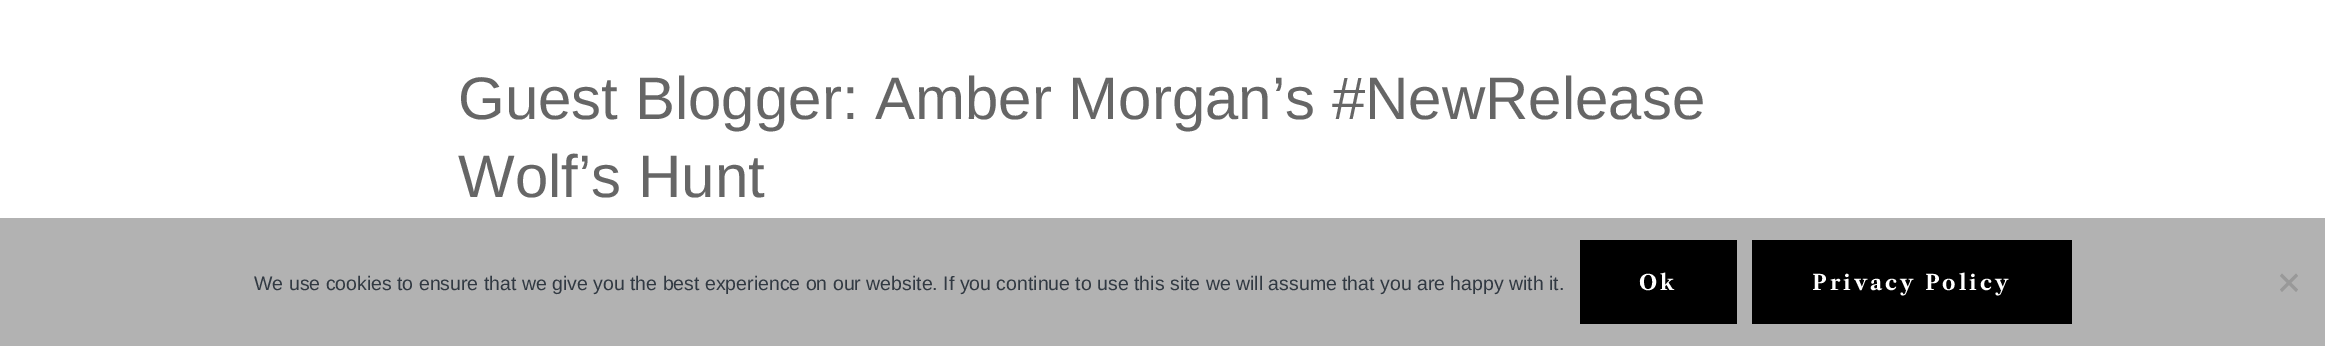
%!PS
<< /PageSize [2325 346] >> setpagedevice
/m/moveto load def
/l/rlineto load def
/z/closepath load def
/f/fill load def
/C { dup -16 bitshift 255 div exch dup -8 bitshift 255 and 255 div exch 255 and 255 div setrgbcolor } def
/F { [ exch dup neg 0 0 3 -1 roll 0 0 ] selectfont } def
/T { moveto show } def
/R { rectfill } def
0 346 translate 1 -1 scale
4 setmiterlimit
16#FFFFFF C
0 0 2325 346 R
/LiberationSans-Regular 60 F
16#666666 C
(Guest Blogger: Amber Morgan’s #NewRelease) 458 119 T
(Wolf’s Hunt) 458 197 T
16#B2B2B2 C
0 218 2325 128 R
/LiberationSans-Regular 19.5 F
16#313942 C
(We use cookies to ensure that we give you the best experience on our website. If you continue to use this site we will assume that you are happy with it.) 254 290 T
16#000000 C
1580 240 157 84 R
/LibreCaslonText-Bold 21 F
16#FFFFFF C
1639 290 m 3 0 (Ok) ashow
16#000000 C
1752 240 320 84 R
16#FFFFFF C
1812 290 m 3 0 (Privacy Policy) ashow
16#999999 C
2296 273.5 m 2 2.5 l -16 16 l -2 -2.5 l z f
2280 276 m 2 -2.5 l 16 16 l -2 2.5 l z f
showpage
